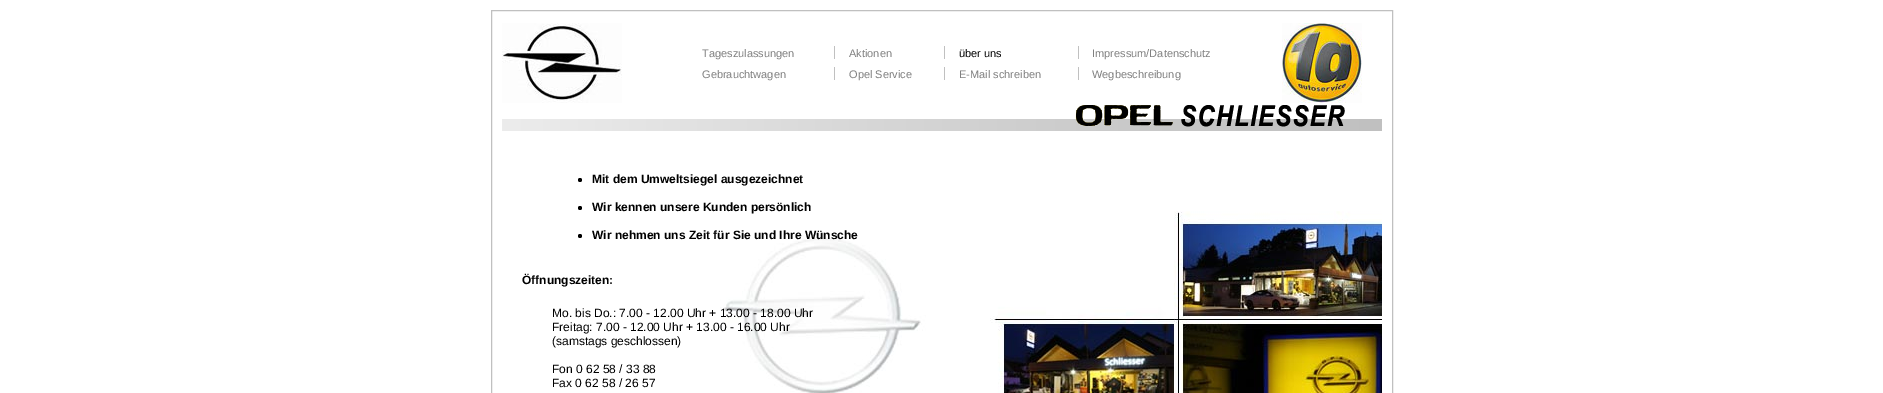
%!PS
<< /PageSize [1883 393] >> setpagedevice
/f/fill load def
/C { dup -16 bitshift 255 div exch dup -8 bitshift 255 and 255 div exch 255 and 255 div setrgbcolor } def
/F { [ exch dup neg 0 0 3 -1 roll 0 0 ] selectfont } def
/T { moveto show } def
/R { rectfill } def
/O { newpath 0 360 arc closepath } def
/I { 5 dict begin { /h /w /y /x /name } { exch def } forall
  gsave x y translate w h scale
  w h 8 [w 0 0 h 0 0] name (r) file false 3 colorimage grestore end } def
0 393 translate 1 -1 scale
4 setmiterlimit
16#FFFFFF C
0 0 1883 393 R
16#C0C0C0 C
491.5 10.5 901 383 rectstroke
(1.rgb) 502 23 120 80 I
/LiberationSans-Regular 11 F
16#808080 C
(Tageszulassungen) 702 57 T
16#C0C0C0 C
834 46 1 13 R
16#808080 C
(Aktionen) 849 57 T
16#C0C0C0 C
944 46 1 13 R
16#000000 C
(über uns) 959 57 T
16#C0C0C0 C
1078 46 1 13 R
16#808080 C
(Impressum/Datenschutz) 1092 57 T
(Gebrauchtwagen) 702 78 T
16#C0C0C0 C
834 67 1 13 R
16#808080 C
(Opel Service) 849 78 T
16#C0C0C0 C
944 67 1 13 R
16#808080 C
(E-Mail schreiben) 959 78 T
16#C0C0C0 C
1078 67 1 13 R
16#808080 C
(Wegbeschreibung) 1092 78 T
(2.rgb) 1282 23 80 80 I
(3.rgb) 502 105 880 26 I
(4.rgb) 720 211 662 182 I
16#000000 C
580 180 2 O f
/LiberationSans-Bold 12 F
(Mit dem Umweltsiegel ausgezeichnet) 592 183 T
580 208 2 O f
(Wir kennen unsere Kunden persönlich) 592 211 T
580 236 2 O f
(Wir nehmen uns Zeit für Sie und Ihre Wünsche) 592 239 T
(Öffnungszeiten:) 522 284 T
/LiberationSans-Regular 12 F
(Mo. bis Do.: 7.00 - 12.00 Uhr + 13.00 - 18.00 Uhr) 552 317 T
(Freitag: 7.00 - 12.00 Uhr + 13.00 - 16.00 Uhr) 552 331 T
(\(samstags geschlossen\)) 552 345 T
(Fon 0 62 58 / 33 88) 552 373 T
(Fax 0 62 58 / 26 57) 552 387 T
showpage
